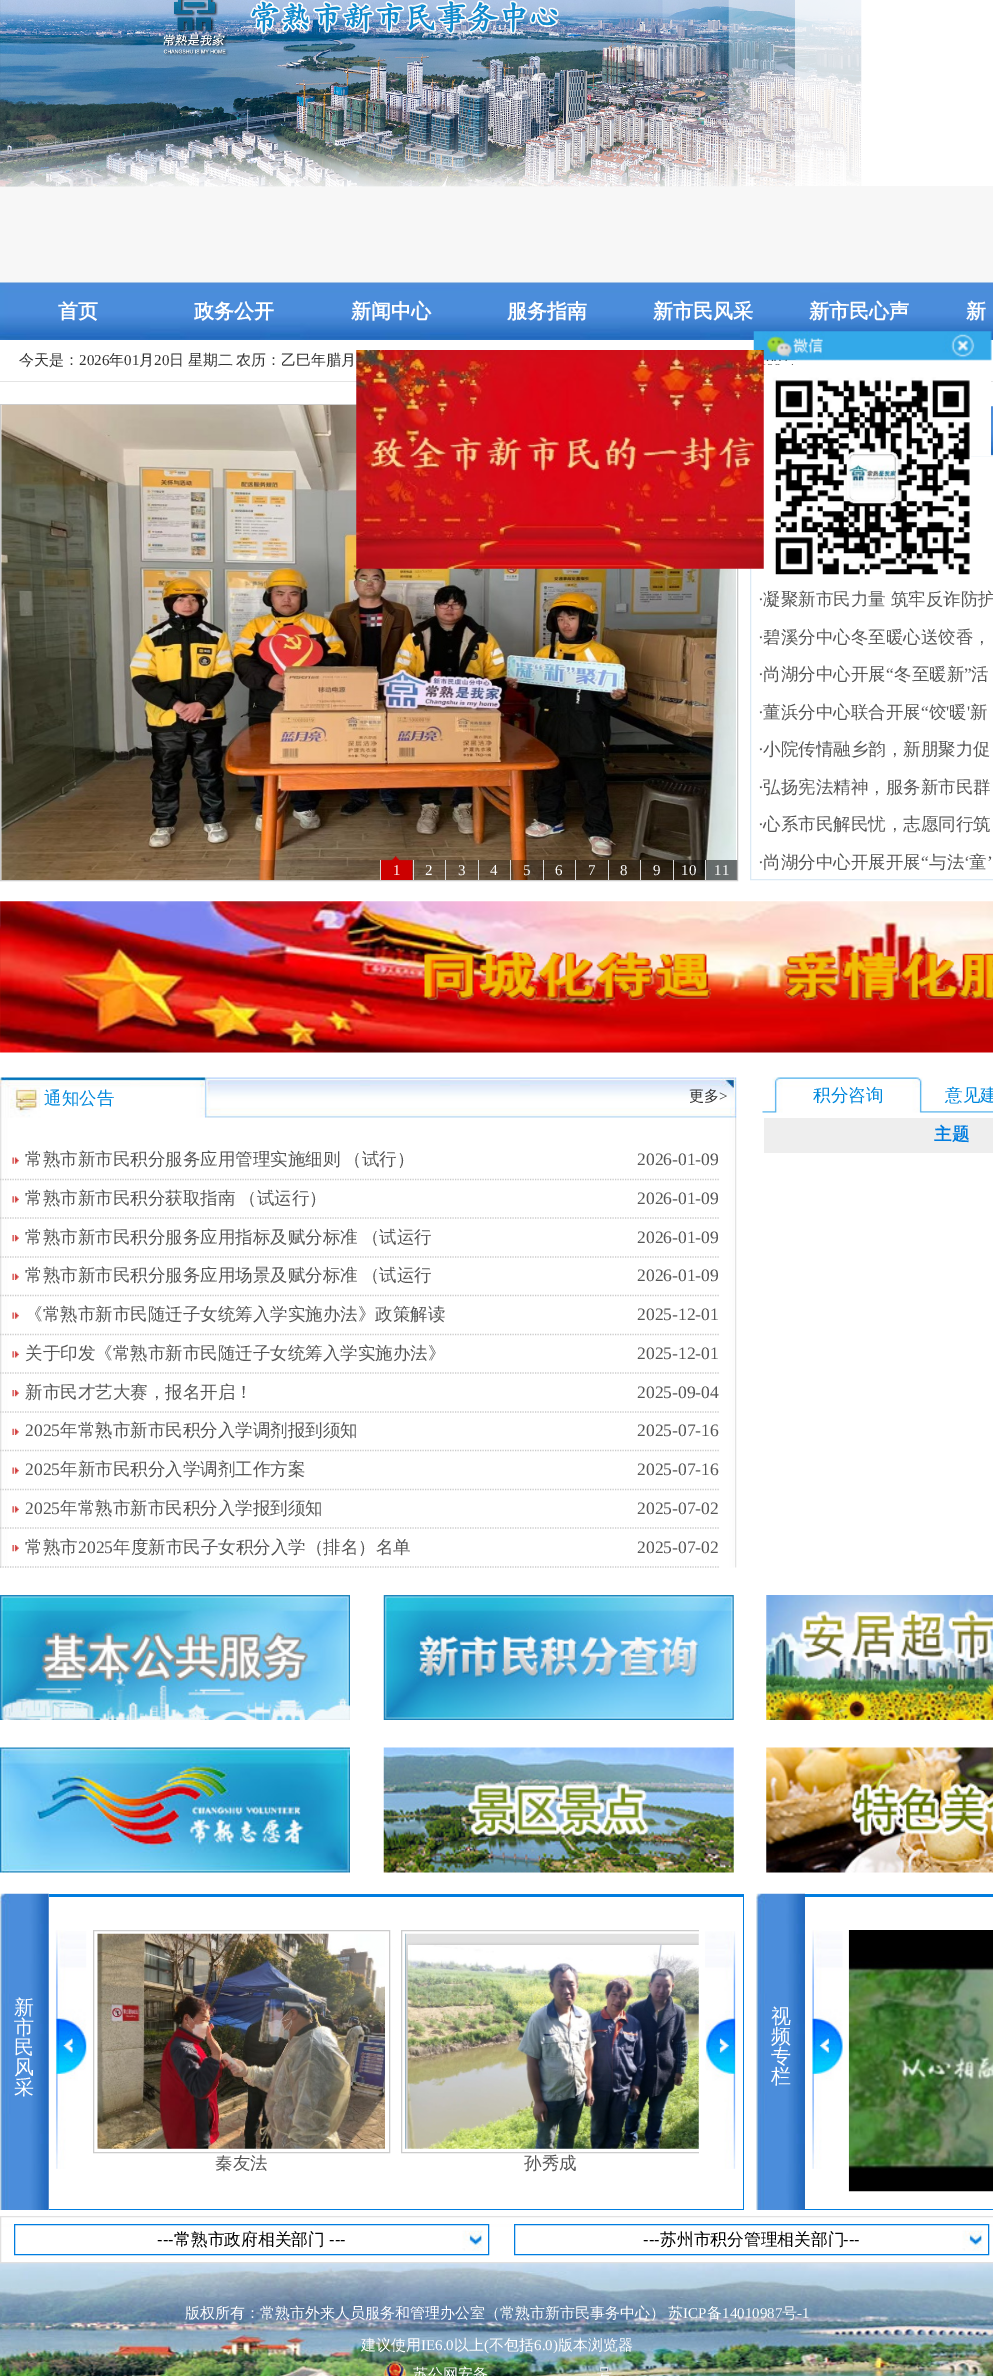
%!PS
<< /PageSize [993 2376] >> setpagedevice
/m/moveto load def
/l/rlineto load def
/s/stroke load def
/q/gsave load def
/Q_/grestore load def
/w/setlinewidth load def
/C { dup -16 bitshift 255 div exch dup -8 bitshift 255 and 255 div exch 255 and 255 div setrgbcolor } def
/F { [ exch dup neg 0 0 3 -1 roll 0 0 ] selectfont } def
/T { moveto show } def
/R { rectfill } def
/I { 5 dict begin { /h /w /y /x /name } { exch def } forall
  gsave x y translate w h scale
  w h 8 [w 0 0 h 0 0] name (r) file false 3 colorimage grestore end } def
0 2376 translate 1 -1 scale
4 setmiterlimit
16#F7F7F7 C
0 0 993 2376 R
16#FFFFFF C
0 0 993 186 R
(1.rgb) 0 0 862 186 I
(2.rgb) 0 0 795 187 I
(3.rgb) 0 0 729 187 I
(4.rgb) 0 0 663 187 I
(5.rgb) 0 186 89 1 I
(6.rgb) 6 186 12 1 I
(7.rgb) 0 282 993 58 I
/WenQuanYiZenHei-Bold 20 F
(首页) 58 318 T
(政务公开) 194 318 T
(新闻中心) 351 318 T
(服务指南) 507 318 T
(新市民风采) 653 318 T
(新市民心声) 809 318 T
(新) 966 318 T
0 340 993 1870 R
16#E4E4E4 C
0 381 993 1 R
/WenQuanYiZenHei-Medium 15 F
16#333333 C
(今天是：) 19 365 T
/LiberationSerif-Regular 15 F
(2026) 79 365 T
/WenQuanYiZenHei-Medium 15 F
(年) 109 365 T
/LiberationSerif-Regular 15 F
(01) 124 365 T
/WenQuanYiZenHei-Medium 15 F
(月) 139 365 T
/LiberationSerif-Regular 15 F
(20) 154 365 T
/WenQuanYiZenHei-Medium 15 F
(日) 169 365 T
(星期二) 188 365 T
(农历：乙巳年腊月) 236 365 T
16#CCCCCC C
.5 404.5 737 476 rectstroke
(8.rgb) 1 405 735 475 I
(9.rgb) 106 860 632 20 I
(10.rgb) 380 856 33 24 I
16#DADADA C
380 860 1 20 R
/LiberationSerif-Regular 15 F
16#FFFFFF C
(1) 393 875 T
16#DADADA C
413 860 1 20 R
16#FFFFFF C
(2) 425 875 T
16#DADADA C
445 860 1 20 R
16#FFFFFF C
(3) 458 875 T
16#DADADA C
478 860 1 20 R
16#FFFFFF C
(4) 490 875 T
16#DADADA C
510 860 1 20 R
16#FFFFFF C
(5) 523 875 T
16#DADADA C
543 860 1 20 R
16#FFFFFF C
(6) 555 875 T
16#DADADA C
575 860 1 20 R
16#FFFFFF C
(7) 588 875 T
16#DADADA C
608 860 1 20 R
16#FFFFFF C
(8) 620 875 T
16#DADADA C
640 860 1 20 R
16#FFFFFF C
(9) 653 875 T
16#DADADA C
673 860 1 20 R
16#FFFFFF C
(10) 681 875 T
16#DADADA C
705 860 1 20 R
16#FFFFFF C
(11) 714 875 T
(11.rgb) 991 406 2 49 I
16#DCEAF5 C
750.5 455.5 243 424 rectstroke
/LiberationSerif-Regular 17.5 F
16#565656 C
(·) 758 605 T
/WenQuanYiZenHei-Medium 17.5 F
(凝聚新市民力量 筑牢反诈防护) 763 605 T
/LiberationSerif-Regular 17.5 F
(·) 758 643 T
/WenQuanYiZenHei-Medium 17.5 F
(碧溪分中心冬至暖心送饺香，) 763 643 T
(尚湖分中心开展) 763 680 T
/LiberationSerif-Regular 17.5 F
(“) 886 680 T
/WenQuanYiZenHei-Medium 17.5 F
(冬至暖新) 894 680 T
/LiberationSerif-Regular 17.5 F
(”) 964 680 T
/WenQuanYiZenHei-Medium 17.5 F
(活) 971 680 T
/LiberationSerif-Regular 17.5 F
(·) 758 680 T
/WenQuanYiZenHei-Medium 17.5 F
(董浜分中心联合开展) 763 718 T
/LiberationSerif-Regular 17.5 F
(“) 921 718 T
/WenQuanYiZenHei-Medium 17.5 F
(饺) 929 718 T
/LiberationSerif-Regular 17.5 F
(') 946 718 T
/WenQuanYiZenHei-Medium 17.5 F
(暖) 949 718 T
/LiberationSerif-Regular 17.5 F
(') 967 718 T
/WenQuanYiZenHei-Medium 17.5 F
970 718 m -1 0 32 (新) widthshow
/LiberationSerif-Regular 17.5 F
(·) 758 718 T
(·) 758 755 T
/WenQuanYiZenHei-Medium 17.5 F
(小院传情融乡韵，新朋聚力促) 763 755 T
/LiberationSerif-Regular 17.5 F
(·) 758 793 T
/WenQuanYiZenHei-Medium 17.5 F
(弘扬宪法精神，服务新市民群) 763 793 T
/LiberationSerif-Regular 17.5 F
(·) 758 830 T
/WenQuanYiZenHei-Medium 17.5 F
(心系市民解民忧，志愿同行筑) 763 830 T
(尚湖分中心开展开展) 763 868 T
/LiberationSerif-Regular 17.5 F
(“) 921 868 T
/WenQuanYiZenHei-Medium 17.5 F
(与法) 929 868 T
/LiberationSerif-Regular 17.5 F
(‘) 964 868 T
/WenQuanYiZenHei-Medium 17.5 F
(童) 969 868 T
/LiberationSerif-Regular 17.5 F
(’) 987 868 T
(·) 758 868 T
(12.rgb) 0 901 993 152 I
(13.rgb) 422 951 571 51 I
(14.rgb) 0 1077 737 491 I
/WenQuanYiZenHei-Medium 17.5 F
16#0088DD C
(通知公告) 44 1104 T
/WenQuanYiZenHei-Medium 15 F
16#333333 C
(更多) 689 1101 T
/LiberationSerif-Regular 15 F
(>) 719 1101 T
(15.rgb) 12 1157 7 7 I
16#CCCCCC C
1.2 w
[1.25 1.25] 0 setdash
0 1179.5 m 719 0 l s
/WenQuanYiZenHei-Medium 17.5 F
16#565656 C
25 1165 m -1 0 32 (常熟市新市民积分服务应用管理实施细则 （试行）) widthshow
/LiberationSerif-Regular 17.5 F
(2026-01-09) 637 1165 T
(16.rgb) 12 1196 7 7 I
16#CCCCCC C
0 1218 m 719 0 l s
/WenQuanYiZenHei-Medium 17.5 F
16#565656 C
25 1204 m -1 0 32 (常熟市新市民积分获取指南 （试运行）) widthshow
/LiberationSerif-Regular 17.5 F
(2026-01-09) 637 1204 T
(17.rgb) 12 1235 7 7 I
16#CCCCCC C
0 1257 m 719 0 l s
/WenQuanYiZenHei-Medium 17.5 F
16#565656 C
25 1243 m -1 0 32 (常熟市新市民积分服务应用指标及赋分标准 （试运行) widthshow
/LiberationSerif-Regular 17.5 F
(2026-01-09) 637 1243 T
(18.rgb) 12 1273 7 7 I
16#CCCCCC C
0 1295.5 m 719 0 l s
/WenQuanYiZenHei-Medium 17.5 F
16#565656 C
25 1281 m -1 0 32 (常熟市新市民积分服务应用场景及赋分标准 （试运行) widthshow
/LiberationSerif-Regular 17.5 F
(2026-01-09) 637 1281 T
(15.rgb) 12 1312 7 7 I
16#CCCCCC C
0 1334.5 m 719 0 l s
/WenQuanYiZenHei-Medium 17.5 F
16#565656 C
(《常熟市新市民随迁子女统筹入学实施办法》政策解读) 25 1320 T
/LiberationSerif-Regular 17.5 F
(2025-12-01) 637 1320 T
(16.rgb) 12 1351 7 7 I
16#CCCCCC C
0 1373 m 719 0 l s
/WenQuanYiZenHei-Medium 17.5 F
16#565656 C
(关于印发《常熟市新市民随迁子女统筹入学实施办法》) 25 1359 T
/LiberationSerif-Regular 17.5 F
(2025-12-01) 637 1359 T
(17.rgb) 12 1390 7 7 I
16#CCCCCC C
0 1412 m 719 0 l s
/WenQuanYiZenHei-Medium 17.5 F
16#565656 C
(新市民才艺大赛，报名开启！) 25 1398 T
/LiberationSerif-Regular 17.5 F
(2025-09-04) 637 1398 T
(18.rgb) 12 1428 7 7 I
16#CCCCCC C
0 1450.5 m 719 0 l s
16#565656 C
(2025) 25 1436 T
/WenQuanYiZenHei-Medium 17.5 F
(年常熟市新市民积分入学调剂报到须知) 60 1436 T
/LiberationSerif-Regular 17.5 F
(2025-07-16) 637 1436 T
(15.rgb) 12 1467 7 7 I
16#CCCCCC C
0 1489.5 m 719 0 l s
16#565656 C
(2025) 25 1475 T
/WenQuanYiZenHei-Medium 17.5 F
(年新市民积分入学调剂工作方案) 60 1475 T
/LiberationSerif-Regular 17.5 F
(2025-07-16) 637 1475 T
(16.rgb) 12 1506 7 7 I
16#CCCCCC C
0 1528 m 719 0 l s
16#565656 C
(2025) 25 1514 T
/WenQuanYiZenHei-Medium 17.5 F
(年常熟市新市民积分入学报到须知) 60 1514 T
/LiberationSerif-Regular 17.5 F
(2025-07-02) 637 1514 T
(17.rgb) 12 1545 7 7 I
16#CCCCCC C
0 1567 m 719 0 l s
/WenQuanYiZenHei-Medium 17.5 F
16#565656 C
(常熟市) 25 1553 T
/LiberationSerif-Regular 17.5 F
(2025) 78 1553 T
/WenQuanYiZenHei-Medium 17.5 F
(年度新市民子女积分入学（排名）名单) 113 1553 T
/LiberationSerif-Regular 17.5 F
(2025-07-02) 637 1553 T
(19.rgb) 762 1077 231 36 I
/WenQuanYiZenHei-Medium 17.5 F
16#0088DD C
(积分咨询) 813 1101 T
(意见建) 945 1101 T
16#EEEEEE C
764 1118 229 35 R
/WenQuanYiZenHei-Bold 17.5 F
16#007DE0 C
(主题) 934 1140 T
(20.rgb) 0 1595 350 125 I
(21.rgb) 383 1595 351 125 I
(22.rgb) 766 1595 227 125 I
(23.rgb) 0 1747 350 126 I
(24.rgb) 383 1747 351 126 I
(25.rgb) 766 1747 227 126 I
(26.rgb) 0 1893 49 317 I
/WenQuanYiZenHei-Medium 20 F
16#FFFFFF C
(新) 14 2014 T
(市) 14 2034 T
(民) 14 2054 T
(风) 14 2074 T
(采) 14 2094 T
(27.rgb) 756 1893 49 317 I
(视) 771 2023 T
(频) 771 2043 T
(专) 771 2063 T
(栏) 771 2083 T
16#007DE0 C
805 1894 188 3 R
805 2209 188 1 R
(28.rgb) 811 1930 32 239 I
(29.rgb) 848 1930 145 262 I
49 1894 695 3 R
743 1894 1 316 R
49 2209 695 1 R
(30.rgb) 55 1930 32 239 I
16#CCCCCC C
1 w
[] 0 setdash
93.5 1930.5 296 222 rectstroke
(31.rgb) 97 1933 288 216 I
/WenQuanYiZenHei-Medium 17.5 F
16#565656 C
(秦友法) 215 2169 T
q
401 1930 298 261 rectclip
16#CCCCCC C
401.5 1930.5 373 222 rectstroke
Q_
(32.rgb) 405 1933 294 216 I
(孙秀成) 524 2169 T
(33.rgb) 705 1931 31 238 I
(34.rgb) 0 2210 993 166 I
(35.rgb) 753 331 239 30 I
16#FFFFFF C
754 381 237 75 R
(36.rgb) 760 364 211 227 I
1 2227 992 35 R
16#E2E1E1 C
.5 2216.5 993 46 rectstroke
(37.rgb) 462 2230 21 21 I
16#007DE0 C
14.5 2224.5 474 30 rectstroke
/LiberationSans-Regular 16.75 F
16#000000 C
(---) 157 2245 T
/WenQuanYiZenHei-Medium 16.75 F
(常熟市政府相关部门) 174 2245 T
/LiberationSans-Regular 16.75 F
(---) 329 2245 T
(38.rgb) 962 2230 21 21 I
16#007DE0 C
514.5 2224.5 474 30 rectstroke
16#000000 C
(---) 643 2245 T
/WenQuanYiZenHei-Medium 16.75 F
(苏州市积分管理相关部门) 660 2245 T
/LiberationSans-Regular 16.75 F
(---) 843 2245 T
/WenQuanYiZenHei-Medium 15 F
16#FFFFFF C
(版权所有：常熟市外来人员服务和管理办公室（常熟市新市民事务中心）) 185 2318 T
(苏) 668 2318 T
/LiberationSerif-Regular 15 F
(ICP) 683 2318 T
/WenQuanYiZenHei-Medium 15 F
(备) 707 2318 T
/LiberationSerif-Regular 15 F
(14010987) 722 2318 T
/WenQuanYiZenHei-Medium 15 F
(号) 782 2318 T
/LiberationSerif-Regular 15 F
(-1) 797 2318 T
/WenQuanYiZenHei-Medium 15 F
(建议使用) 361 2350 T
/LiberationSerif-Regular 15 F
(IE6.0) 421 2350 T
/WenQuanYiZenHei-Medium 15 F
(以上) 454 2350 T
/LiberationSerif-Regular 15 F
(\() 484 2350 T
/WenQuanYiZenHei-Medium 15 F
(不包括) 489 2350 T
/LiberationSerif-Regular 15 F
(6.0\)) 534 2350 T
/WenQuanYiZenHei-Medium 15 F
(版本浏览器) 558 2350 T
(39.rgb) 383 2361 24 15 I
(苏公网安备) 413 2379 T
(号) 597 2379 T
(40.rgb) 356 350 408 219 I
showpage
